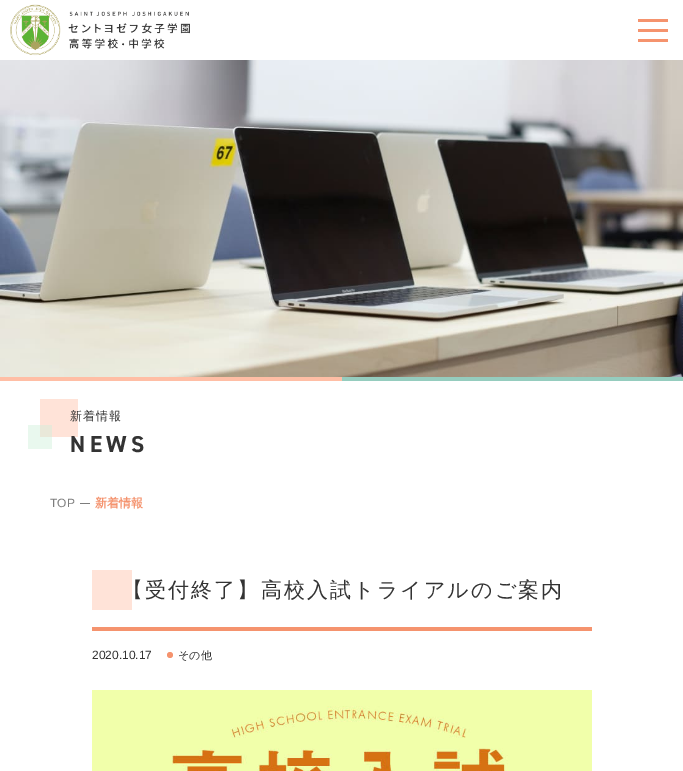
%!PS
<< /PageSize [683 771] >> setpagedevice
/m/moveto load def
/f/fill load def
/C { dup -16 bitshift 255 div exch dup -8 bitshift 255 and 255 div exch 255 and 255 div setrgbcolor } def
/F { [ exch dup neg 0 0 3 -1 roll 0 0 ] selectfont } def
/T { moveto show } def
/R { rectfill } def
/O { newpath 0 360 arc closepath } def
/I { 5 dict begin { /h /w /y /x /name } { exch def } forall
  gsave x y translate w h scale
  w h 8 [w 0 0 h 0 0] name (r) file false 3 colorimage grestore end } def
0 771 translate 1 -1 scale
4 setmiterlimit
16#FFFFFF C
0 0 683 771 R
16#E9F8EE C
28 425 24 24 R
(1.rgb) 10 4 180 52 I
16#F5936E C
638 19 30 3 R
638 29 30 3 R
638 39 30 3 R
(2.rgb) 0 60 683 317 I
16#FFBEA5 C
0 377 342 4 R
16#95CCBE C
342 377 341 4 R
16#FFE3D8 C
40 399 38 38 R
16#E9E8D9 C
40 425 12 12 R
/WenQuanYiZenHei-Medium 12 F
16#333333 C
70 420 m 1 0 (新着情報) ashow
/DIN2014-Bold 23 F
70 452 m 4.5 0 (NEWS) ashow
/LiberationSans-Regular 12 F
16#7D7D7D C
(TOP) 50 507 T
80 503 10 1 R
/WenQuanYiZenHei-Bold 12 F
16#F5936E C
(新着情報) 95 507 T
16#FFE3D8 C
92 570 40 40 R
/WenQuanYiZenHei-Medium 21 F
16#333333 C
122 597 m 2.1 0 (【受付終了】高校入試トライアルのご案内) ashow
16#F5936E C
92 627 500 4 R
/LiberationSans-Regular 12 F
16#333333 C
(2020.10.17) 92 659 T
16#F5936E C
170 655 3 O f
/WenQuanYiZenHei-Medium 11 F
16#333333 C
(その他) 178 659 T
(3.rgb) 92 690 500 81 I
showpage
